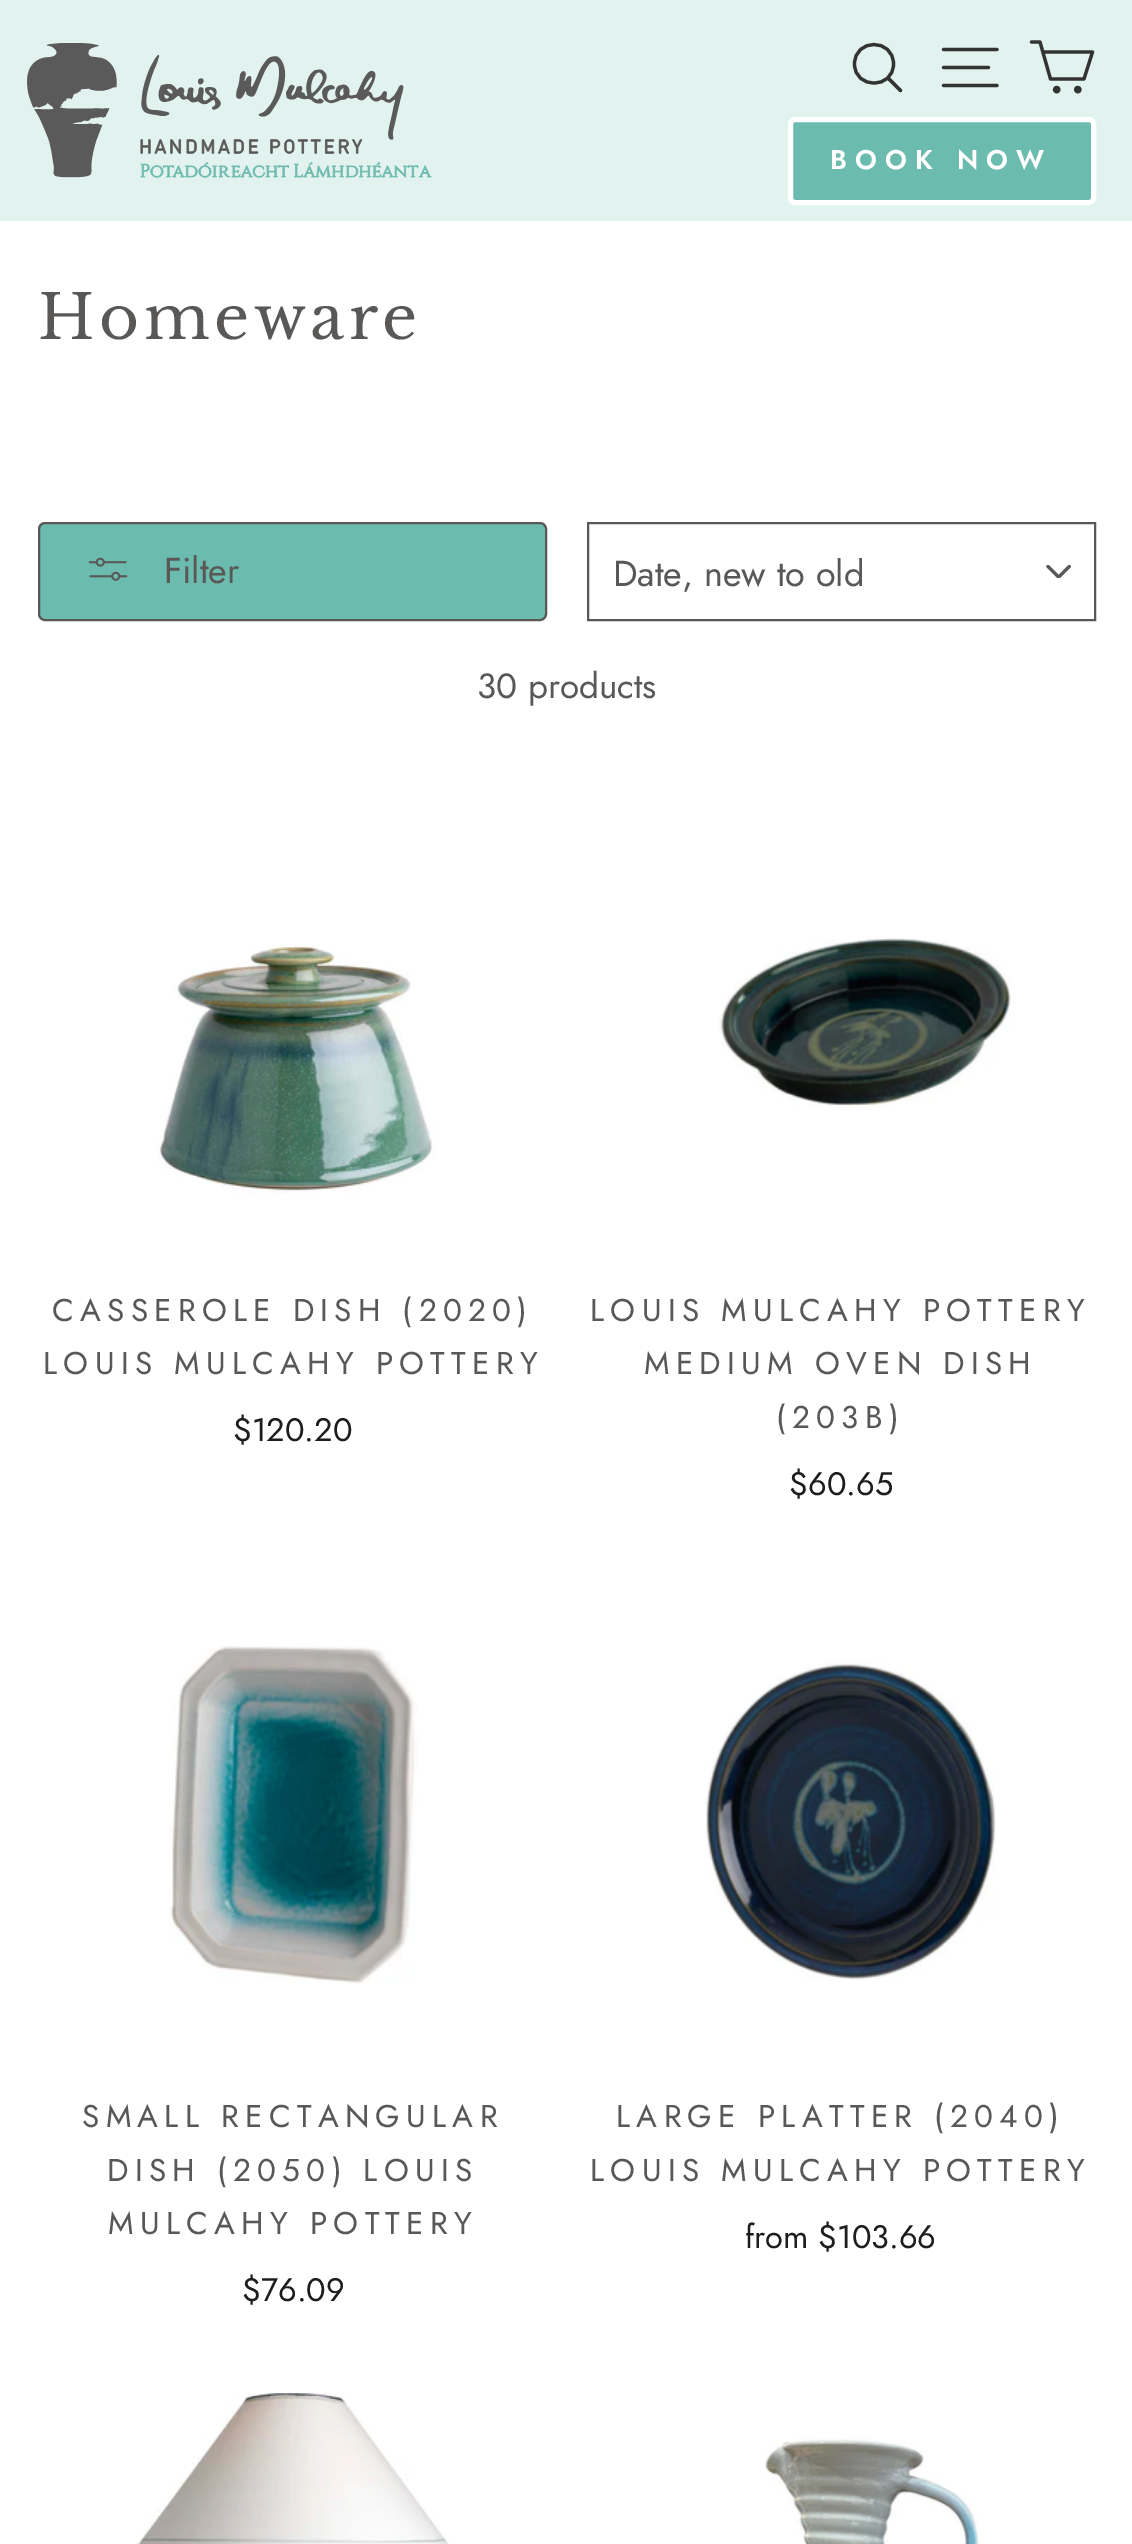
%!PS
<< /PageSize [1132 2544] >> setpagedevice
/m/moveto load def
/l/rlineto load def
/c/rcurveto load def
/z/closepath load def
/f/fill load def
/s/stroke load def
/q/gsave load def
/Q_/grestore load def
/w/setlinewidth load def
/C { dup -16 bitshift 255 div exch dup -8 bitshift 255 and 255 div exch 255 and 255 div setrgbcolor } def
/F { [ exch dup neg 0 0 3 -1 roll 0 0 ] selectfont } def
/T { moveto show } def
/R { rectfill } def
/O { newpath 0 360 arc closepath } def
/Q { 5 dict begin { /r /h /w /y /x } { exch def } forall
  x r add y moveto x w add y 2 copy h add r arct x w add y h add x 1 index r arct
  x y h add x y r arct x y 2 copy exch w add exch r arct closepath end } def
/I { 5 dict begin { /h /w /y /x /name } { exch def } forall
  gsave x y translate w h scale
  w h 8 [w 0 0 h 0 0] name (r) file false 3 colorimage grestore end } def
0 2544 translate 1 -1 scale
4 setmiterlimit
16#FFFFFF C
0 0 1132 2544 R
16#E2F3EF C
0 0 1132 221 R
(1.rgb) 27 43 405 135 I
16#333333 C
3.2 w
1 setlinecap
1 setlinejoin
893.5 64 m 0 25.5 -39 25.5 -39 0 c 0 -26 39 -26 39 0 c z 900.5 90.5 m -12.5 -12.5 l s
943.5 49.5 m 53.5 0 l 943.5 67.5 m 45 0 l 943.5 85.5 m 53.5 0 l s
1043 52 m 49.5 0 l -8.5 27 l -33.5 0 l -10.5 -37 l -8.5 0 l s
1056.7 89.6 2.1 O q f Q_
0 setlinecap
0 setlinejoin
s
1077.8 89.6 2.1 O q f Q_
s
16#6BBBAE C
790.5 119.5 303 83 4.5 Q q f Q_
16#FFFFFF C
5 w
s
/Jost-SemiBold 27 F
830 169 m 8 0 (BOOK NOW) ashow
/LibreBaskerville-Regular 61.25 F
16#595856 C
38 339 m 4.5 0 (Homeware) ashow
16#6BBBAE C
39 523 507 97 6 Q q f Q_
16#595856 C
2 w
s
(2.rgb) 88 557 40 24 I
/Jost-Regular 36 F
(Filter) 164 583 T
(3.rgb) 1046 565 25 13 I
588 523 507 97 rectstroke
(Date, new to old) 613 586 T
/Jost-Regular 35 F
(30 products) 477 698 T
(4.rgb) 158 945 277 249 I
/Jost-Regular 31.5 F
52 1321 m 6.3 0 (CASSEROLE DISH \(2020\)) ashow
43 1374 m 6.3 0 (LOUIS MULCAHY POTTERY) ashow
/Jost-Regular 32.5 F
16#1C1D1D C
($120.20) 233 1441 T
(5.rgb) 718 938 293 169 I
/Jost-Regular 31.5 F
16#595856 C
590 1321 m 6.3 0 (LOUIS MULCAHY POTTERY) ashow
644 1374 m 6.3 0 (MEDIUM OVEN DISH) ashow
776 1428 m 6.3 0 (\(203B\)) ashow
/Jost-Regular 32.5 F
16#1C1D1D C
($60.65) 789 1495 T
(6.rgb) 169 1645 249 339 I
/Jost-Regular 31.5 F
16#595856 C
82 2127 m 6.3 0 (SMALL RECTANGULAR) ashow
107 2181 m 6.3 0 (DISH \(2050\) LOUIS) ashow
108 2234 m 6.3 0 (MULCAHY POTTERY) ashow
/Jost-Regular 32.5 F
16#1C1D1D C
($76.09) 242 2301 T
(7.rgb) 706 1661 290 319 I
/Jost-Regular 31.5 F
16#595856 C
616 2127 m 6.3 0 (LARGE PLATTER \(2040\)) ashow
590 2181 m 6.3 0 (LOUIS MULCAHY POTTERY) ashow
/Jost-Regular 32.5 F
16#1C1D1D C
(from $103.66) 745 2248 T
(8.rgb) 136 2393 313 151 I
(9.rgb) 765 2437 214 107 I
showpage
